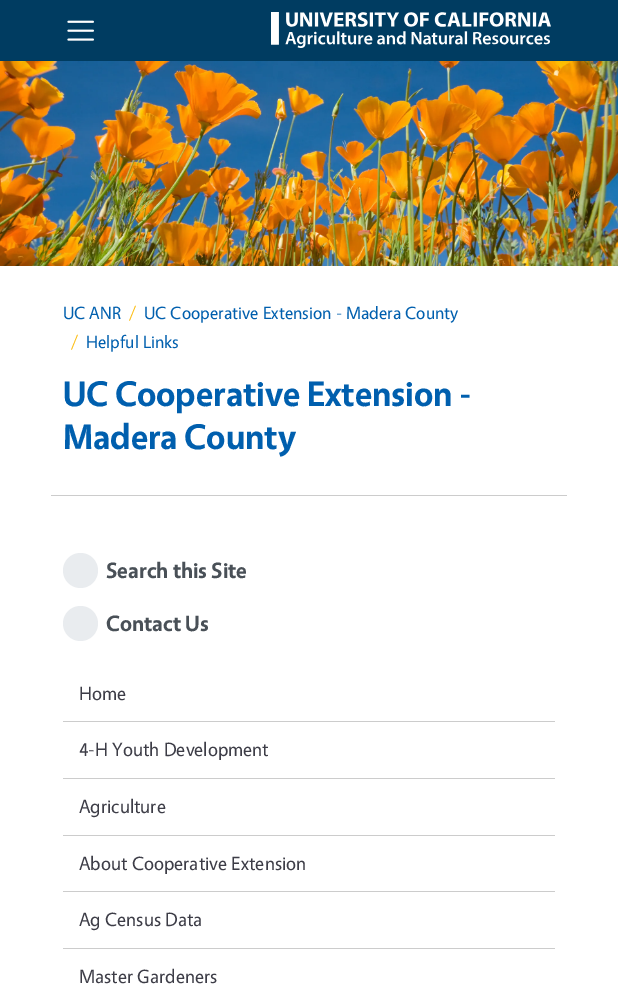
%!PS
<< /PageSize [618 989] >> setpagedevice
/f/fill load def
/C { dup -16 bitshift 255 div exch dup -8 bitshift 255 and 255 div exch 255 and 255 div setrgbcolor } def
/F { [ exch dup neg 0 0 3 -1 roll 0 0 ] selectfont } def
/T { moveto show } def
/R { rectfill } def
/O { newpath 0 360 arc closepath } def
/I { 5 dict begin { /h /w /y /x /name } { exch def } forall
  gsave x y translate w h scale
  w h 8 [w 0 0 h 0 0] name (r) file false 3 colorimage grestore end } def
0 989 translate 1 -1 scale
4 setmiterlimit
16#FFFFFF C
0 0 618 989 R
16#003C61 C
0 0 618 61 R
(1.rgb) 67 20 27 21 I
(2.rgb) 271 12 280 36 I
(3.rgb) 0 61 618 205 I
/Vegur-Regular 17.8 F
16#005FAE C
(UC ANR) 63 319 T
16#FDBD10 C
(/) 129 319 T
16#005FAE C
(UC Cooperative Extension - Madera County) 144 319 T
16#FDBD10 C
(/) 71 348 T
16#005FAE C
(Helpful Links) 86 348 T
16#CCCCCC C
51 495 516 1 R
/Vegur-Bold 35.75 F
16#005FAE C
(UC Cooperative Extension -) 63 406 T
(Madera County) 63 449 T
16#E9ECEF C
80.5 570.5 17.5 O f
/Vegur-Bold 22.25 F
16#495057 C
(Search this Site) 106 578 T
16#E9ECEF C
80.5 623.5 17.5 O f
16#495057 C
(Contact Us) 106 631 T
16#CCCCCC C
63 721 492 1 R
/Vegur-Regular 19.25 F
16#3D3D47 C
(Home) 79 700 T
16#CCCCCC C
63 778 492 1 R
16#3D3D47 C
(4-H Youth Development) 79 756 T
16#CCCCCC C
63 835 492 1 R
16#3D3D47 C
(Agriculture) 79 813 T
16#CCCCCC C
63 891 492 1 R
16#3D3D47 C
(About Cooperative Extension) 79 870 T
16#CCCCCC C
63 948 492 1 R
16#3D3D47 C
(Ag Census Data) 79 926 T
(Master Gardeners) 79 983 T
showpage
